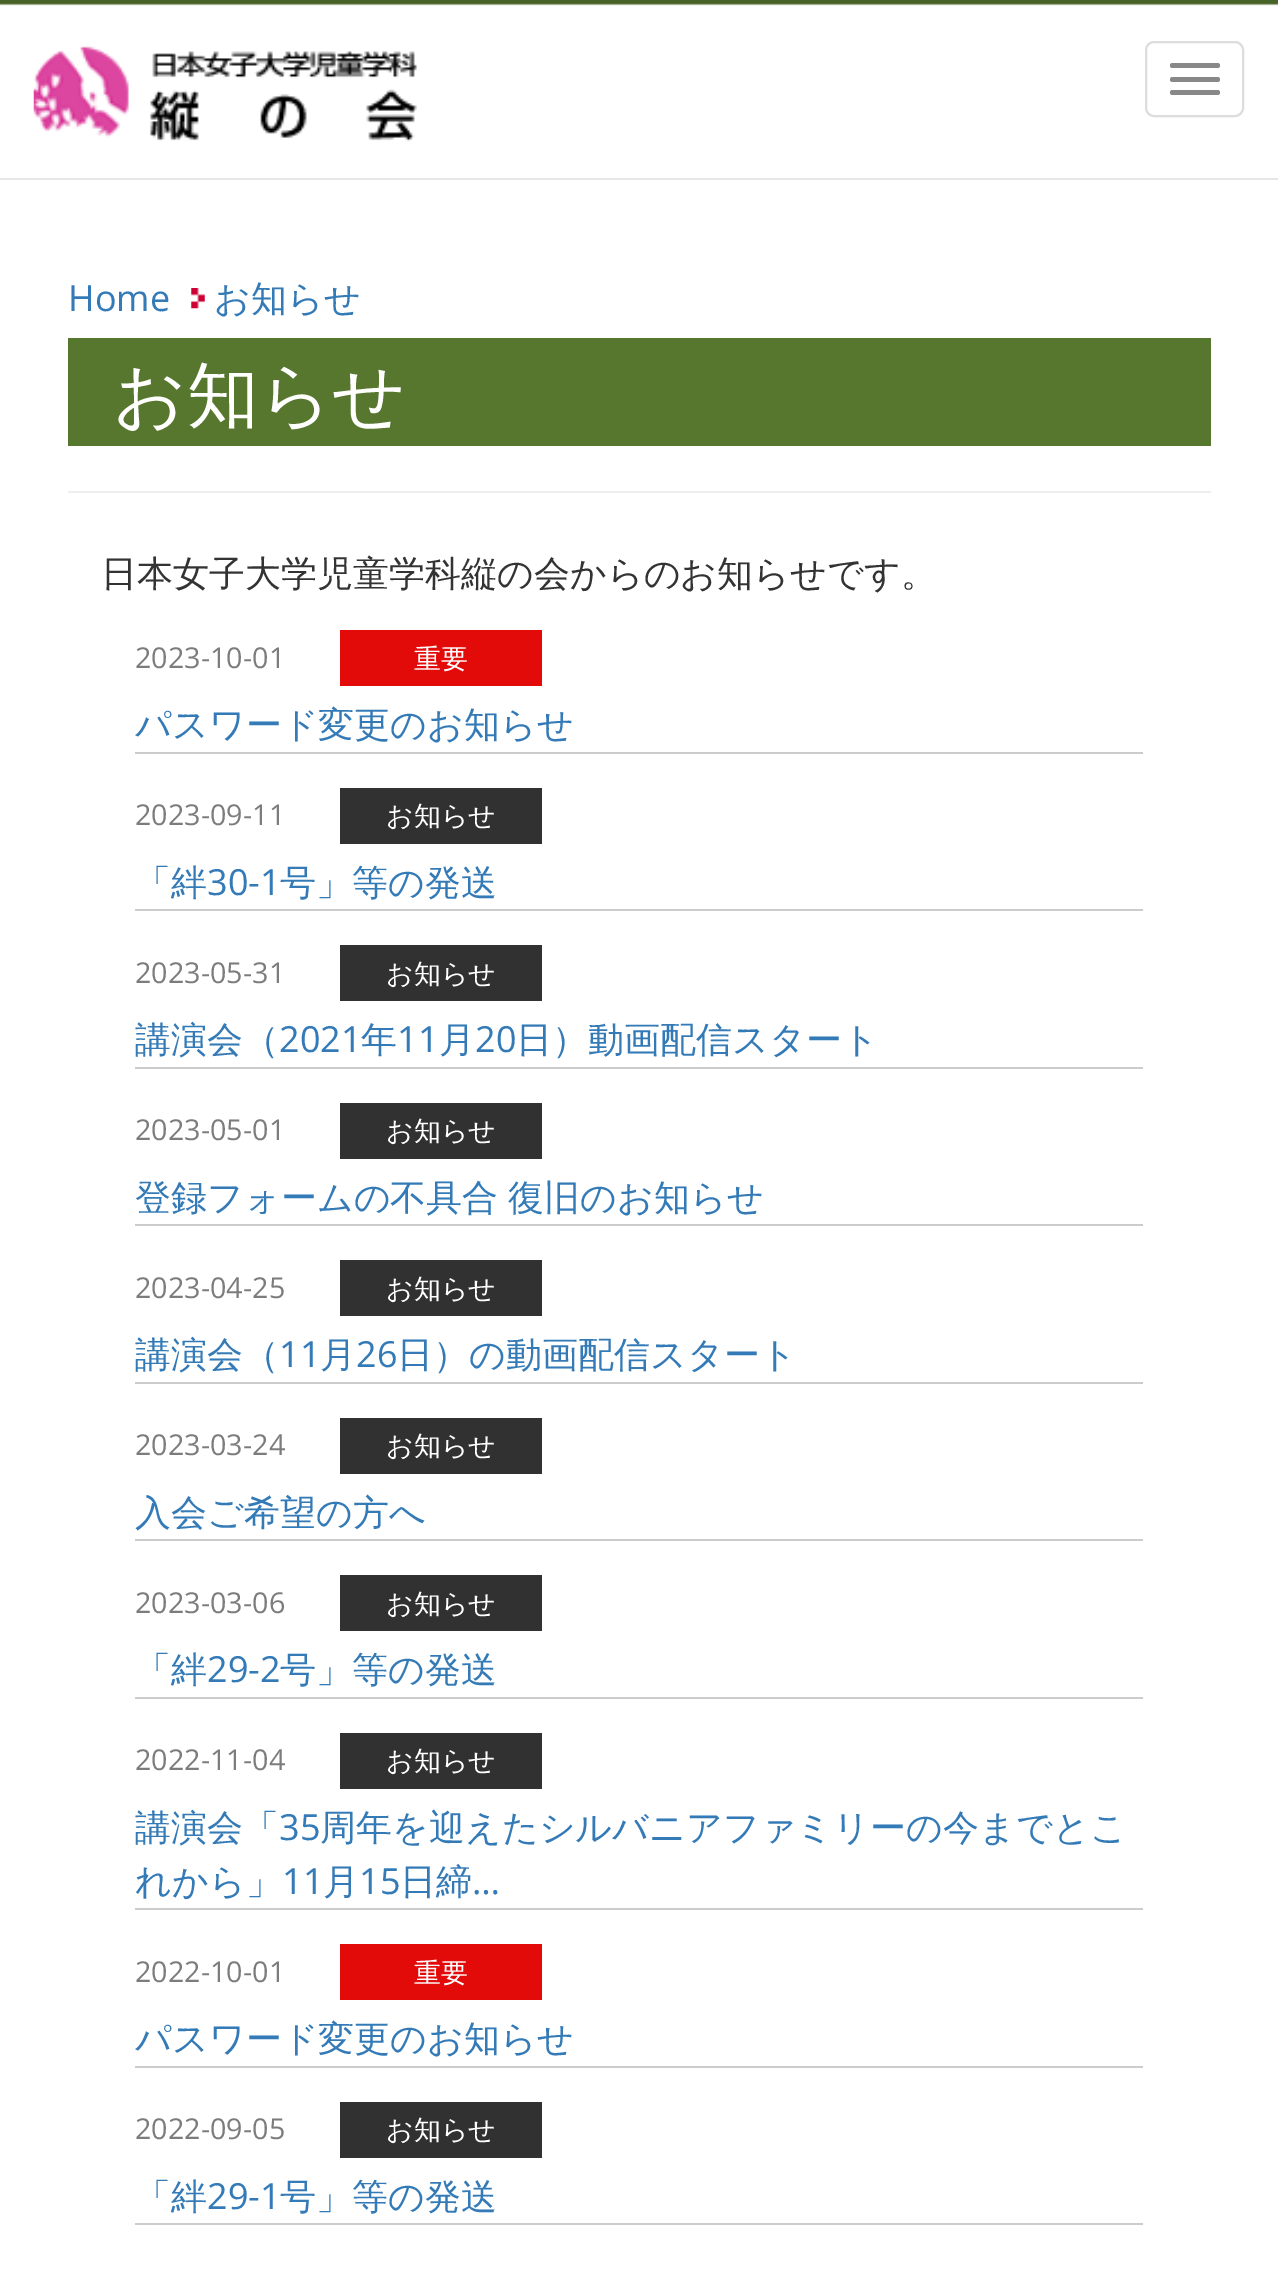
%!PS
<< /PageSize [1278 2279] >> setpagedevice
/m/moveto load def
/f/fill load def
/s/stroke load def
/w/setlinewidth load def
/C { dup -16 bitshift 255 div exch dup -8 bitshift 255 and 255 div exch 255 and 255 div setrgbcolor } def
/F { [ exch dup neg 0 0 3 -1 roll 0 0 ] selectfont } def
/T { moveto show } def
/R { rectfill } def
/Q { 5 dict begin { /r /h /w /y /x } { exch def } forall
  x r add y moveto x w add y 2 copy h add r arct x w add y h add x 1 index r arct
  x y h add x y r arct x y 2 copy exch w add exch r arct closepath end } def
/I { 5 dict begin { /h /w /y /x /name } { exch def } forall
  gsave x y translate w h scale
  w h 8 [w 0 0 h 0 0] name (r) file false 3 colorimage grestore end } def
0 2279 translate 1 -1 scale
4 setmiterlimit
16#FFFFFF C
0 0 1278 2279 R
(1.rgb) 0 0 1278 6 I
16#E7E7E7 C
0 178 1278 2 R
(2.rgb) 33 46 384 96 I
16#DDDDDD C
2 w
1146 42 97 74 8 Q s
16#888888 C
1170 63 50 5 2.5 Q f
1170 77 50 5 2.5 Q f
1170 90 50 5 2.5 Q f
/OpenSans-Regular 36 F
16#337AB7 C
(Home) 68 311 T
(3.rgb) 191 288 14 21 I
/WenQuanYiZenHei-Medium 36 F
(お知らせ) 214 311 T
16#57772F C
68 338 1143 108 R
/WenQuanYiZenHei-Medium 72 F
16#FFFFFF C
(お知らせ) 113 420 T
16#EEEEEE C
68 491 1143 2 R
/WenQuanYiZenHei-Medium 36 F
16#333333 C
(日本女子大学児童学科縦の会からのお知らせです。) 101 586 T
/OpenSans-Regular 28.75 F
16#7C7C7C C
(2023-10-01) 135 668 T
16#E30A0A C
340 630 202 56 R
/WenQuanYiZenHei-Medium 27 F
16#FFFFFF C
(重要) 414 668 T
16#CCCCCC C
135 752 1008 2 R
/WenQuanYiZenHei-Medium 36 F
16#337AB7 C
(パスワード変更のお知らせ) 135 737 T
/OpenSans-Regular 28.75 F
16#7C7C7C C
(2023-09-11) 135 825 T
16#313131 C
340 788 202 56 R
/WenQuanYiZenHei-Medium 27 F
16#FFFFFF C
(お知らせ) 386 825 T
16#CCCCCC C
135 909 1008 2 R
/WenQuanYiZenHei-Medium 36 F
16#337AB7 C
(「絆) 135 895 T
/OpenSans-Regular 36 F
(30-1) 207 895 T
/WenQuanYiZenHei-Medium 36 F
(号」等の発送) 280 895 T
/OpenSans-Regular 28.75 F
16#7C7C7C C
(2023-05-31) 135 983 T
16#313131 C
340 945 202 56 R
/WenQuanYiZenHei-Medium 27 F
16#FFFFFF C
(お知らせ) 386 983 T
16#CCCCCC C
135 1067 1008 2 R
/WenQuanYiZenHei-Medium 36 F
16#337AB7 C
(講演会（) 135 1052 T
/OpenSans-Regular 36 F
(2021) 279 1052 T
/WenQuanYiZenHei-Medium 36 F
(年) 361 1052 T
/OpenSans-Regular 36 F
(11) 397 1052 T
/WenQuanYiZenHei-Medium 36 F
(月) 439 1052 T
/OpenSans-Regular 36 F
(20) 475 1052 T
/WenQuanYiZenHei-Medium 36 F
(日）動画配信スタート) 516 1052 T
/OpenSans-Regular 28.75 F
16#7C7C7C C
(2023-05-01) 135 1140 T
16#313131 C
340 1103 202 56 R
/WenQuanYiZenHei-Medium 27 F
16#FFFFFF C
(お知らせ) 386 1140 T
16#CCCCCC C
135 1224 1008 2 R
/WenQuanYiZenHei-Medium 36 F
16#337AB7 C
135 1210 m -1 0 32 (登録フォームの不具合 復旧のお知らせ) widthshow
/OpenSans-Regular 28.75 F
16#7C7C7C C
(2023-04-25) 135 1298 T
16#313131 C
340 1260 202 56 R
/WenQuanYiZenHei-Medium 27 F
16#FFFFFF C
(お知らせ) 386 1298 T
16#CCCCCC C
135 1382 1008 2 R
/WenQuanYiZenHei-Medium 36 F
16#337AB7 C
(講演会（) 135 1367 T
/OpenSans-Regular 36 F
(11) 279 1367 T
/WenQuanYiZenHei-Medium 36 F
(月) 320 1367 T
/OpenSans-Regular 36 F
(26) 356 1367 T
/WenQuanYiZenHei-Medium 36 F
(日）の動画配信スタート) 397 1367 T
/OpenSans-Regular 28.75 F
16#7C7C7C C
(2023-03-24) 135 1455 T
16#313131 C
340 1418 202 56 R
/WenQuanYiZenHei-Medium 27 F
16#FFFFFF C
(お知らせ) 386 1455 T
16#CCCCCC C
135 1539 1008 2 R
/WenQuanYiZenHei-Medium 36 F
16#337AB7 C
(入会ご希望の方へ) 135 1525 T
/OpenSans-Regular 28.75 F
16#7C7C7C C
(2023-03-06) 135 1613 T
16#313131 C
340 1575 202 56 R
/WenQuanYiZenHei-Medium 27 F
16#FFFFFF C
(お知らせ) 386 1613 T
16#CCCCCC C
135 1697 1008 2 R
/WenQuanYiZenHei-Medium 36 F
16#337AB7 C
(「絆) 135 1682 T
/OpenSans-Regular 36 F
(29-2) 207 1682 T
/WenQuanYiZenHei-Medium 36 F
(号」等の発送) 280 1682 T
/OpenSans-Regular 28.75 F
16#7C7C7C C
(2022-11-04) 135 1770 T
16#313131 C
340 1733 202 56 R
/WenQuanYiZenHei-Medium 27 F
16#FFFFFF C
(お知らせ) 386 1770 T
16#CCCCCC C
135 1908 1008 2 R
/WenQuanYiZenHei-Medium 36 F
16#337AB7 C
(講演会「) 135 1840 T
/OpenSans-Regular 36 F
(35) 279 1840 T
/WenQuanYiZenHei-Medium 36 F
(周年を迎えたシルバニアファミリーの今までとこ) 320 1840 T
(れから」) 135 1894 T
/OpenSans-Regular 36 F
(11) 282 1894 T
/WenQuanYiZenHei-Medium 36 F
(月) 323 1894 T
/OpenSans-Regular 36 F
(15) 359 1894 T
/WenQuanYiZenHei-Medium 36 F
(日締) 400 1894 T
/OpenSans-Regular 36 F
(…) 472 1894 T
/OpenSans-Regular 28.75 F
16#7C7C7C C
(2022-10-01) 135 1982 T
16#E30A0A C
340 1944 202 56 R
/WenQuanYiZenHei-Medium 27 F
16#FFFFFF C
(重要) 414 1982 T
16#CCCCCC C
135 2066 1008 2 R
/WenQuanYiZenHei-Medium 36 F
16#337AB7 C
(パスワード変更のお知らせ) 135 2051 T
/OpenSans-Regular 28.75 F
16#7C7C7C C
(2022-09-05) 135 2139 T
16#313131 C
340 2102 202 56 R
/WenQuanYiZenHei-Medium 27 F
16#FFFFFF C
(お知らせ) 386 2139 T
16#CCCCCC C
135 2223 1008 2 R
/WenQuanYiZenHei-Medium 36 F
16#337AB7 C
(「絆) 135 2209 T
/OpenSans-Regular 36 F
(29-1) 207 2209 T
/WenQuanYiZenHei-Medium 36 F
(号」等の発送) 280 2209 T
showpage
